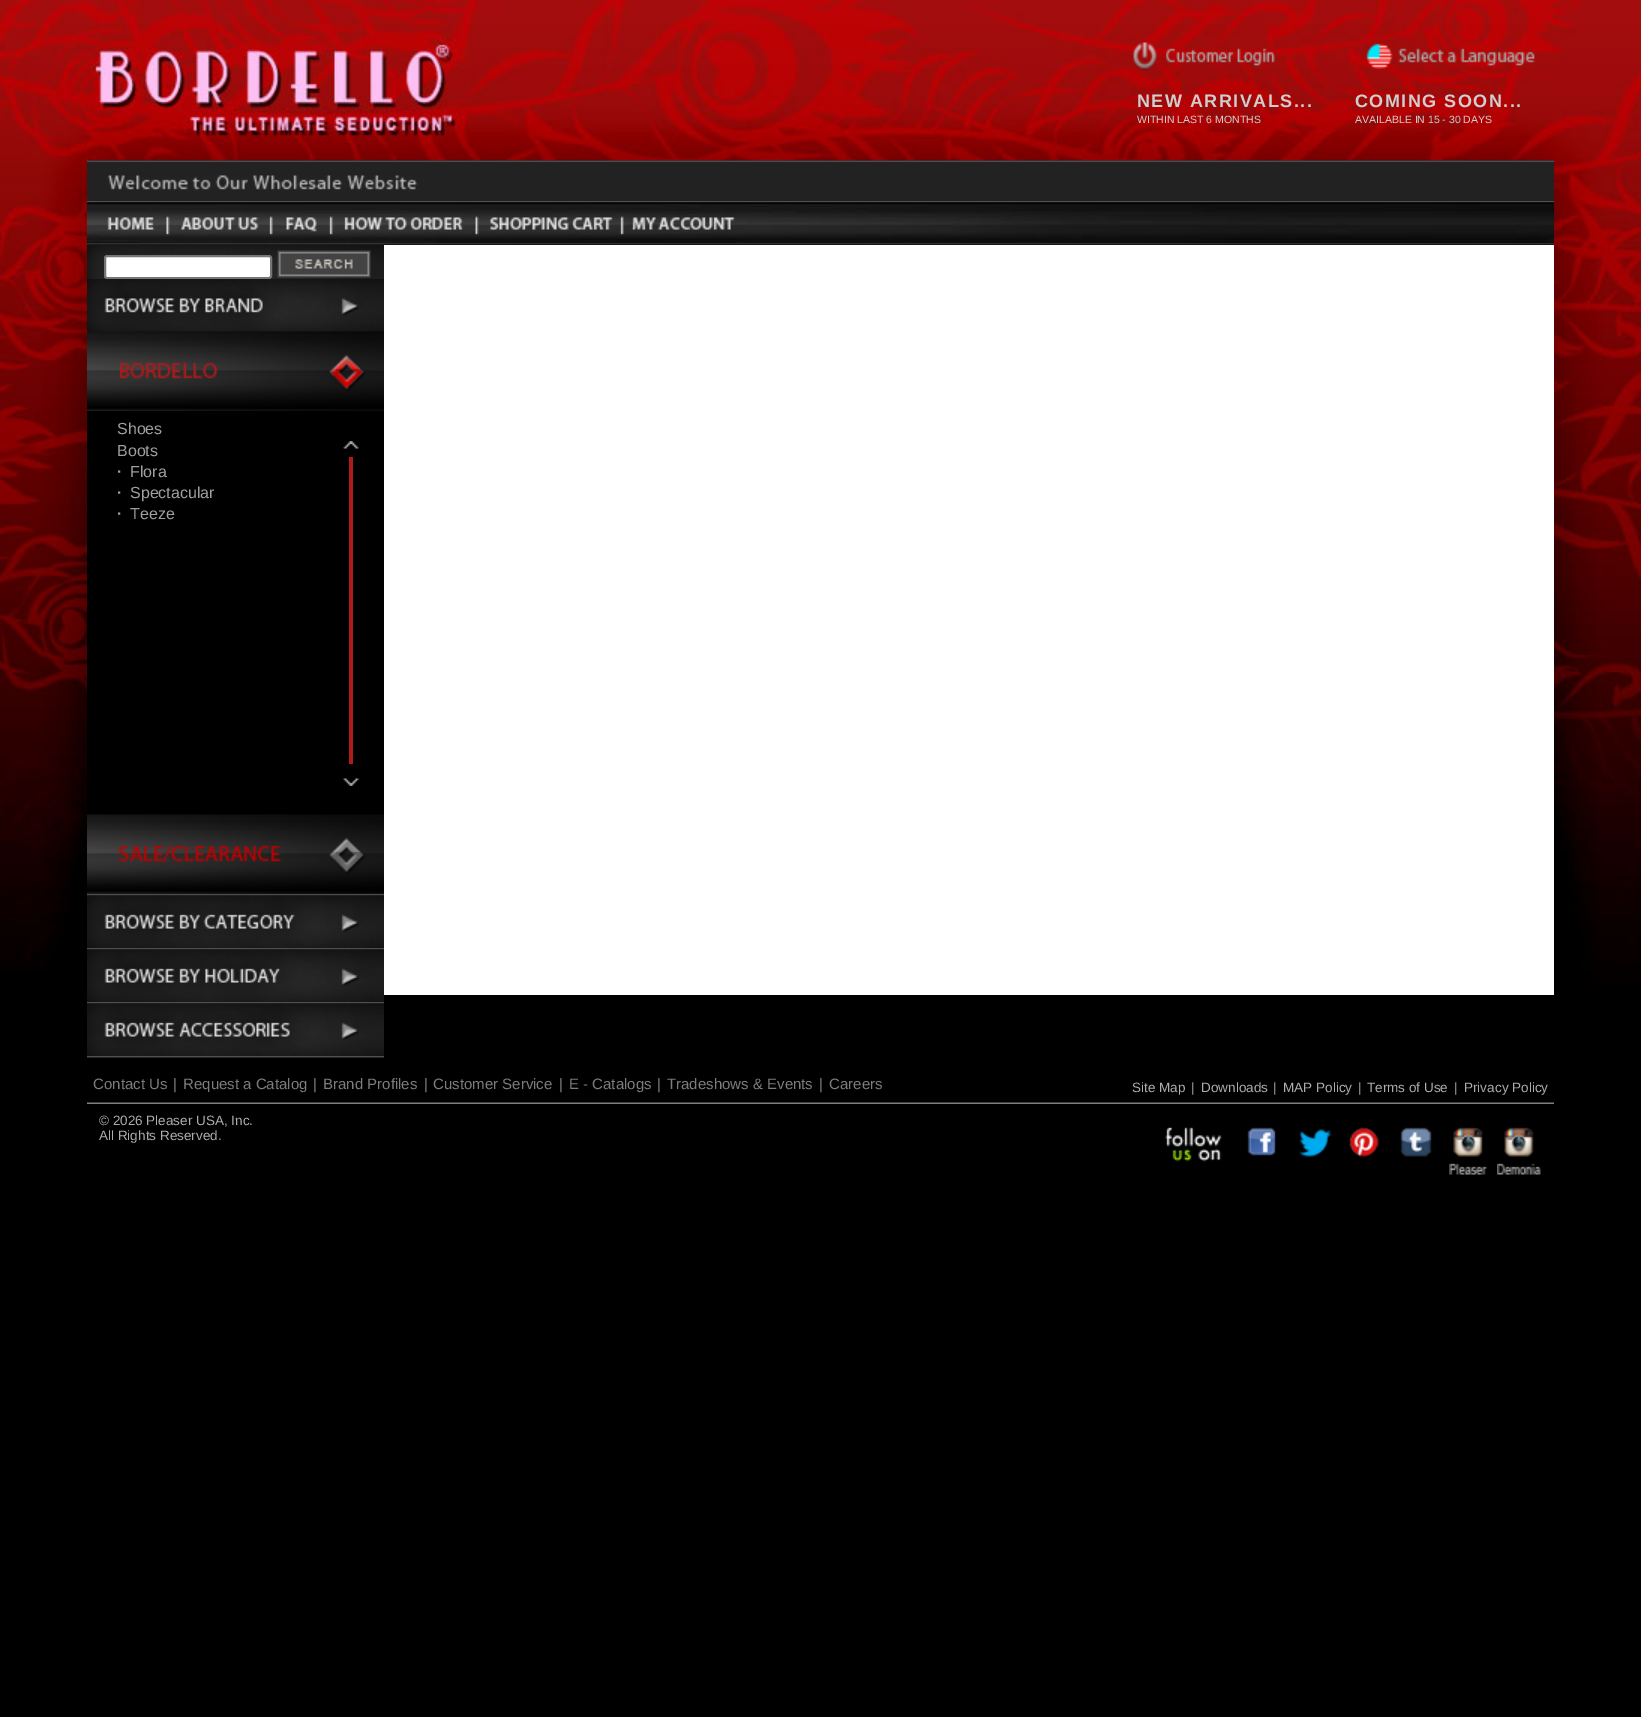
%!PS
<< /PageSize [1641 1717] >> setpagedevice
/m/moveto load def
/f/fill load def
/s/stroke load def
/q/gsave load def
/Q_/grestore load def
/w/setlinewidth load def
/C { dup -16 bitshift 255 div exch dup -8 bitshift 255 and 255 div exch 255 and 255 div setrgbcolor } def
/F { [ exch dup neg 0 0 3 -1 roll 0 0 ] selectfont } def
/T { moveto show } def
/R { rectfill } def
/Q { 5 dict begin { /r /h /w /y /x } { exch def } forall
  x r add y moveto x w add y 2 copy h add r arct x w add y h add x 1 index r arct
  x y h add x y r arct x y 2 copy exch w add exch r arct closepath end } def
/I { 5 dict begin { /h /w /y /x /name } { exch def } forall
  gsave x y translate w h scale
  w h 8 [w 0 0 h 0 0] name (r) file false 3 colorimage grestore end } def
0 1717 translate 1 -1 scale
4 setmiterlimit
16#000000 C
0 0 1641 1717 R
(1.rgb) 0 0 87 971 I
(2.rgb) 87 0 1467 332 I
(3.rgb) 1133 42 142 29 I
(4.rgb) 1366 43 169 26 I
/LiberationSans-Bold 18 F
16#CFCFCF C
1137 107 m 1.5 0 (NEW ARRIVALS...) ashow
/LiberationSans-Regular 10.5 F
(WITHIN LAST 6 MONTHS) 1137 123 T
/LiberationSans-Bold 18 F
1355 107 m 1.5 0 (COMING SOON...) ashow
/LiberationSans-Regular 10.5 F
(AVAILABLE IN 15 - 30 DAYS) 1355 123 T
(5.rgb) 87 160 1467 2 I
16#222222 C
87 162 1467 39 R
(6.rgb) 107 175 311 15 I
(7.rgb) 87 201 1467 2 I
(8.rgb) 87 202 1467 41 I
(9.rgb) 107 217 48 13 I
(10.rgb) 166 215 4 20 I
(11.rgb) 181 217 78 13 I
(12.rgb) 269 216 4 19 I
(13.rgb) 286 217 31 15 I
(14.rgb) 329 216 4 19 I
(15.rgb) 344 217 119 13 I
(16.rgb) 475 215 4 20 I
(17.rgb) 490 217 123 13 I
(18.rgb) 620 215 4 20 I
(19.rgb) 631 217 104 13 I
(21.rgb) 87 244 297 88 I
(20.rgb) 87 243 1467 2 I
16#FFFFFF C
105 256 166 22 2 Q q f Q_
16#767676 C
2 w
s
(22.rgb) 277 250 94 29 I
(23.rgb) 87 279 297 53 I
(24.rgb) 87 331 297 80 I
/LiberationSans-Regular 16 F
16#A0A0A0 C
(Shoes) 117 434 T
(Boots) 117 456 T
/LiberationSans-Bold 16 F
(·) 117 477 T
/LiberationSans-Regular 16 F
(Flora) 130 477 T
/LiberationSans-Bold 16 F
(·) 117 498 T
/LiberationSans-Regular 16 F
(Spectacular) 130 498 T
/LiberationSans-Bold 16 F
(·) 117 519 T
/LiberationSans-Regular 16 F
(Teeze) 130 519 T
(25.rgb) 343 441 16 8 I
16#B11A1A C
349 457 4 307 R
(26.rgb) 343 778 16 8 I
(27.rgb) 87 814 297 80 I
(28.rgb) 87 894 297 2 I
(29.rgb) 87 895 297 53 I
(28.rgb) 87 948 297 2 I
(30.rgb) 87 949 297 53 I
(28.rgb) 87 1002 297 2 I
(31.rgb) 87 1003 297 53 I
(28.rgb) 87 1056 297 2 I
16#FFFFFF C
384 245 1170 750 R
/LiberationSans-Regular 15 F
16#7D7D7D C
(Contact Us) 93 1089 T
(|) 173 1089 T
(Request a Catalog) 183 1089 T
(|) 313 1089 T
(Brand Profiles) 323 1089 T
(|) 424 1089 T
(Customer Service) 433 1089 T
(|) 559 1089 T
(E - Catalogs) 569 1089 T
(|) 657 1089 T
(Tradeshows & Events) 667 1089 T
(|) 819 1089 T
(Careers) 829 1089 T
/LiberationSans-Regular 13.5 F
16#ADADAD C
(Site Map) 1132 1092 T
(|) 1191 1092 T
(Downloads) 1201 1092 T
(|) 1273 1092 T
(MAP Policy) 1283 1092 T
(|) 1358 1092 T
(Terms of Use) 1367 1092 T
(|) 1454 1092 T
(Privacy Policy) 1464 1092 T
(32.rgb) 87 1102 1467 2 I
(© 2026 Pleaser USA, Inc.) 99 1125 T
(All Rights Reserved.) 99 1140 T
(33.rgb) 1165 1127 57 35 I
(34.rgb) 1247 1127 29 29 I
(35.rgb) 1299 1129 33 28 I
(36.rgb) 1349 1127 30 30 I
(37.rgb) 1400 1127 32 30 I
(38.rgb) 1449 1127 38 48 I
(39.rgb) 1497 1127 44 48 I
(40.rgb) 1554 0 87 984 I
showpage
